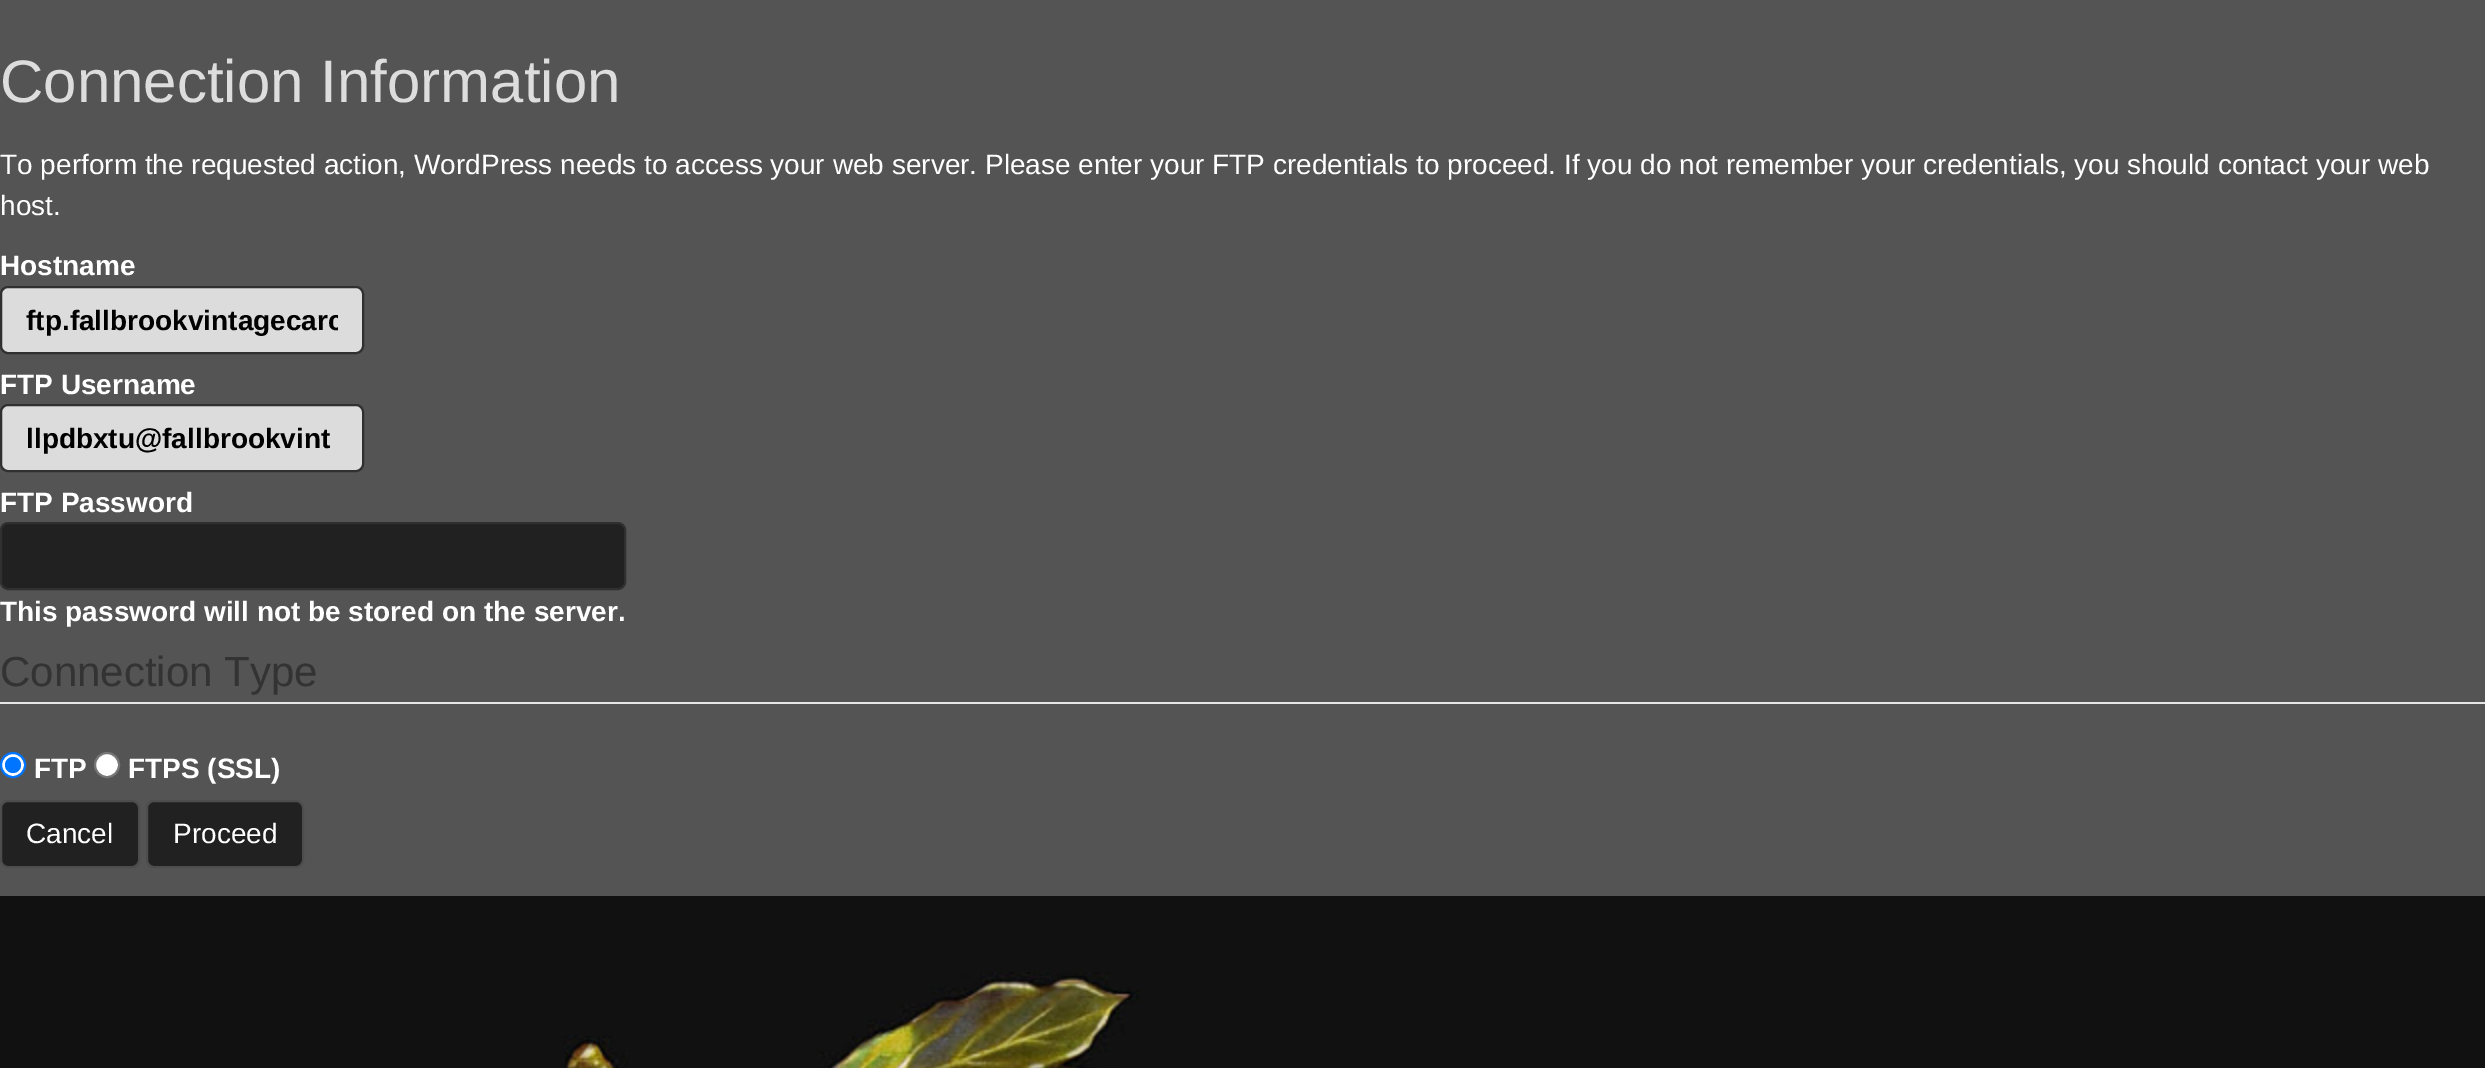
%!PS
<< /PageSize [2485 1068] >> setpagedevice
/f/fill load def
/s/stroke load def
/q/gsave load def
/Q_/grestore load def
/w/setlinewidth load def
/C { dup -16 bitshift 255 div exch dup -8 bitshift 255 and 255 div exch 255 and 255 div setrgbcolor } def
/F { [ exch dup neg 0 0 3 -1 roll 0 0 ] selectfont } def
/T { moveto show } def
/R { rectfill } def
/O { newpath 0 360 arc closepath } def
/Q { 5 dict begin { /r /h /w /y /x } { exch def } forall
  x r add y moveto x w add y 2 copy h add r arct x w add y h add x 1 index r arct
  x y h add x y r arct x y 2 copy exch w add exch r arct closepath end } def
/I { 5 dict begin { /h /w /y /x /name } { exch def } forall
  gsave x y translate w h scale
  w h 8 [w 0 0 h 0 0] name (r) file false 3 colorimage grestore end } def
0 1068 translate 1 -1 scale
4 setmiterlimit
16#545454 C
0 0 2485 1068 R
/LiberationSans-Regular 60 F
16#DDDDDD C
(Connection Information) 0 102 T
/LiberationSans-Regular 28 F
16#FFFFFF C
(To perform the requested action, WordPress needs to access your web server. Please enter your FTP credentials to proceed. If you do not remember your credentials, you should contact your web) 0 174 T
(host.) 0 215 T
/LiberationSans-Bold 28 F
(Hostname) 0 275 T
16#DCDCDC C
1 287 362 66 7 Q q f Q_
16#303030 C
2 w
s
q
26 300 312 40 rectclip
16#000000 C
(ftp.fallbrookvintagecarc) 26 330 T
Q_
16#FFFFFF C
(FTP Username) 0 394 T
16#DCDCDC C
1 405 362 66 7 Q q f Q_
16#303030 C
s
16#000000 C
(llpdbxtu@fallbrookvint) 26 448 T
16#FFFFFF C
(FTP Password) 0 512 T
16#212121 C
1 523 624 66 7 Q q f Q_
16#303030 C
s
16#FFFFFF C
(This password will not be stored on the server.) 0 621 T
16#E5E5E5 C
0 702 2485 2 R
/LiberationSans-Regular 42 F
16#333333 C
(Connection Type) 0 686 T
16#FFFFFF C
13 765 12 O q f Q_
16#0075FF C
s
13 765 8 O f
/LiberationSans-Bold 28 F
16#FFFFFF C
(FTP) 34 778 T
107 765 12 O q f Q_
16#767676 C
s
16#FFFFFF C
(FTPS \(SSL\)) 128 778 T
16#212121 C
1 801 138 66 7 Q q f Q_
16#4D4D4D C
s
/LiberationSans-Regular 28 F
16#FFFFFF C
(Cancel) 26 843 T
16#212121 C
147 801 156 66 7 Q q f Q_
16#4D4D4D C
s
16#FFFFFF C
(Proceed) 173 843 T
16#111111 C
0 896 2485 172 R
(1.rgb) 564 972 576 96 I
showpage
